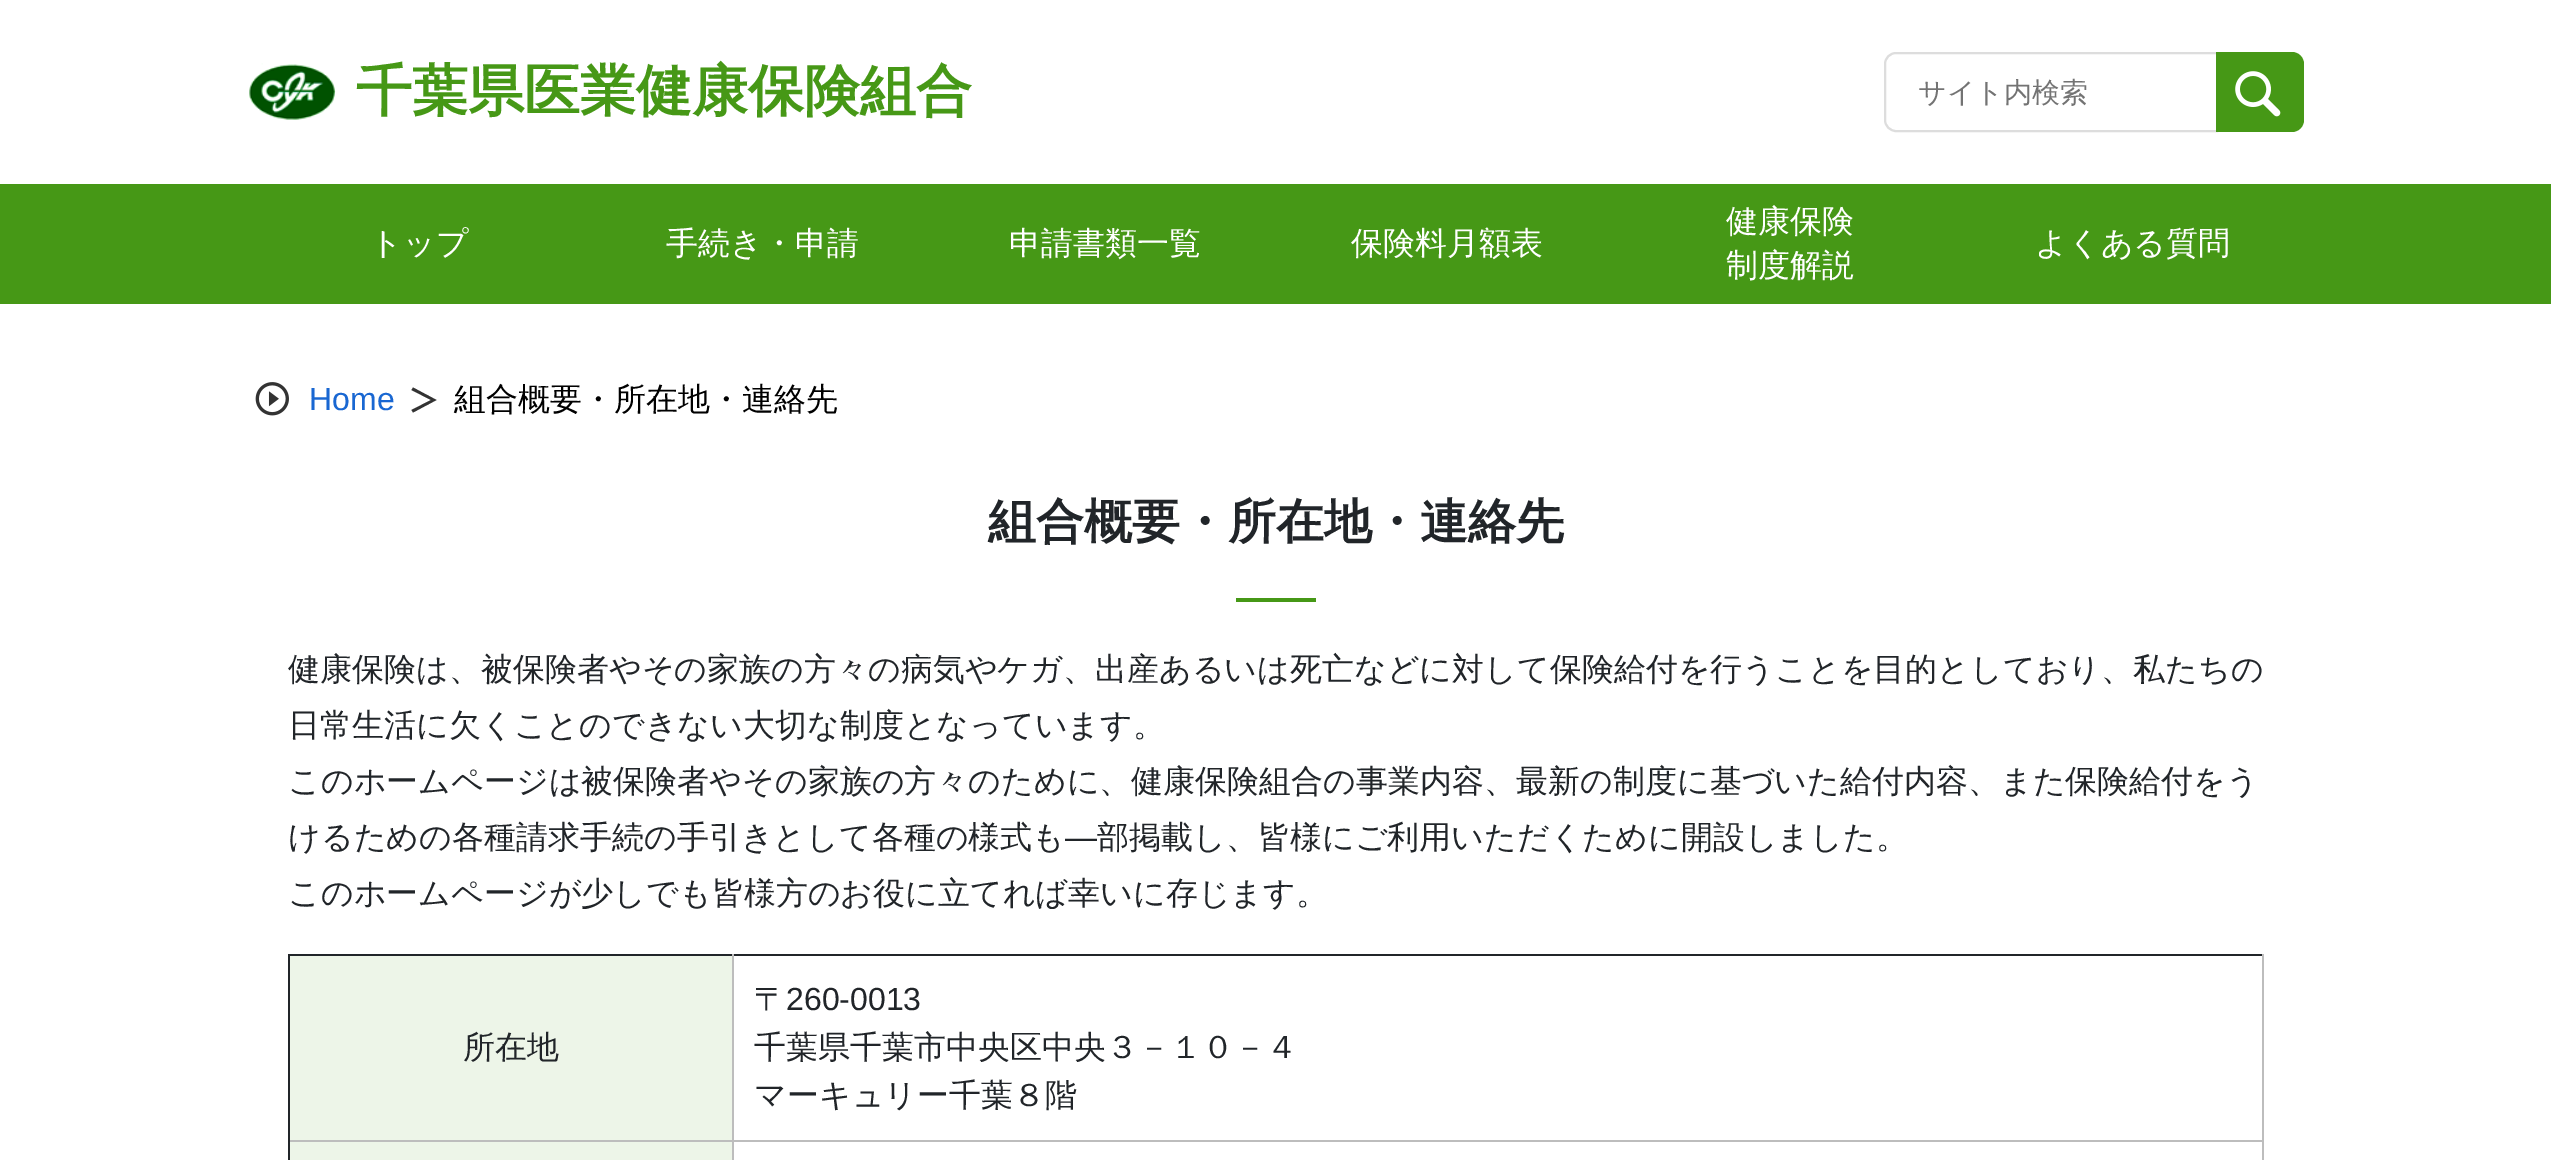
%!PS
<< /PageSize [2551 1160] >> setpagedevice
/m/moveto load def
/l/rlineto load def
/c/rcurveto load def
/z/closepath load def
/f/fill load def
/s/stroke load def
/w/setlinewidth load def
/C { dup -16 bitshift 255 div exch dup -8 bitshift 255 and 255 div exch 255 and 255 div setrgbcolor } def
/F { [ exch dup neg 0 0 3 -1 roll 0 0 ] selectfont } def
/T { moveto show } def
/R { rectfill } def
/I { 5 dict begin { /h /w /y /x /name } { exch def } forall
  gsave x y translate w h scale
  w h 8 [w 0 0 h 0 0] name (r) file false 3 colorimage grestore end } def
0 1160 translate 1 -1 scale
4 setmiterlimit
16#FFFFFF C
0 0 2551 1160 R
(1.rgb) 249 63 87 57 I
/WenQuanYiZenHei-Bold 56 F
16#469816 C
(千葉県医業健康保険組合) 356 110 T
16#DDDDDD C
2 w
1896 53 m 321 0 l 0 78 l -321 0 l -6 0 -11 -5 -11 -11 c 0 -56 l 0 -6 5 -11 11 -11 c z s
/WenQuanYiZenHei-Medium 28 F
16#737373 C
(サイト内検索) 1918 102 T
16#469816 C
2216 52 m 76 0 l 6.5 0 12 5.5 12 12 c 0 56 l 0 6.5 -5.5 12 -12 12 c -76 0 l z f
(2.rgb) 2235 71 46 46 I
0 184 2551 120 R
/WenQuanYiZenHei-Medium 32 F
16#FFFFFF C
(トップ) 370 254 T
(手続き・申請) 666 254 T
(申請書類一覧) 1009 254 T
(保険料月額表) 1351 254 T
(健康保険) 1726 232 T
(制度解説) 1726 276 T
(よくある質問) 2035 254 T
(3.rgb) 255 382 34 34 I
/LiberationSans-Regular 32 F
16#1967D2 C
(Home) 309 410 T
16#333333 C
436.5 400 m -23.5 -12.5 l -1.5 2.5 l 19.5 10 l -19.5 10 l 1.5 2.5 l z f
/WenQuanYiZenHei-Medium 32 F
16#000000 C
(組合概要・所在地・連絡先) 454 410 T
/WenQuanYiZenHei-Bold 48 F
16#212529 C
(組合概要・所在地・連絡先) 988 538 T
16#469816 C
1236 598 80 4 R
/WenQuanYiZenHei-Medium 32 F
16#212529 C
(健康保険は、被保険者やその家族の方々の病気やケガ、出産あるいは死亡などに対して保険給付を行うことを目的としており、私たちの) 288 680 T
(日常生活に欠くことのできない大切な制度となっています。) 288 736 T
(このホームページは被保険者やその家族の方々のために、健康保険組合の事業内容、最新の制度に基づいた給付内容、また保険給付をう) 288 792 T
(けるための各種請求手続の手引きとして各種の様式も) 288 848 T
/LiberationSans-Regular 32 F
(―) 1065 848 T
/WenQuanYiZenHei-Medium 32 F
(部掲載し、皆様にご利用いただくために開設しました。) 1097 848 T
(このホームページが少しでも皆様方のお役に立てれば幸いに存じます。) 288 904 T
16#EDF5E8 C
290 956 442 184 R
16#212529 C
288 954 1976 2 R
16#BDBDBD C
2262 1140 2 20 R
2262 954 2 188 R
732 1140 2 20 R
732 1140 1532 2 R
732 954 2 188 R
16#212529 C
288 1140 2 20 R
16#BDBDBD C
288 1140 446 2 R
16#212529 C
288 954 2 188 R
(所在地) 463 1058 T
(〒) 754 1010 T
/LiberationSans-Regular 32 F
(260-0013) 786 1010 T
/WenQuanYiZenHei-Medium 32 F
(千葉県千葉市中央区中央３－１０－４) 754 1058 T
(マーキュリー千葉８階) 754 1106 T
16#EDF5E8 C
290 1142 442 18 R
showpage
